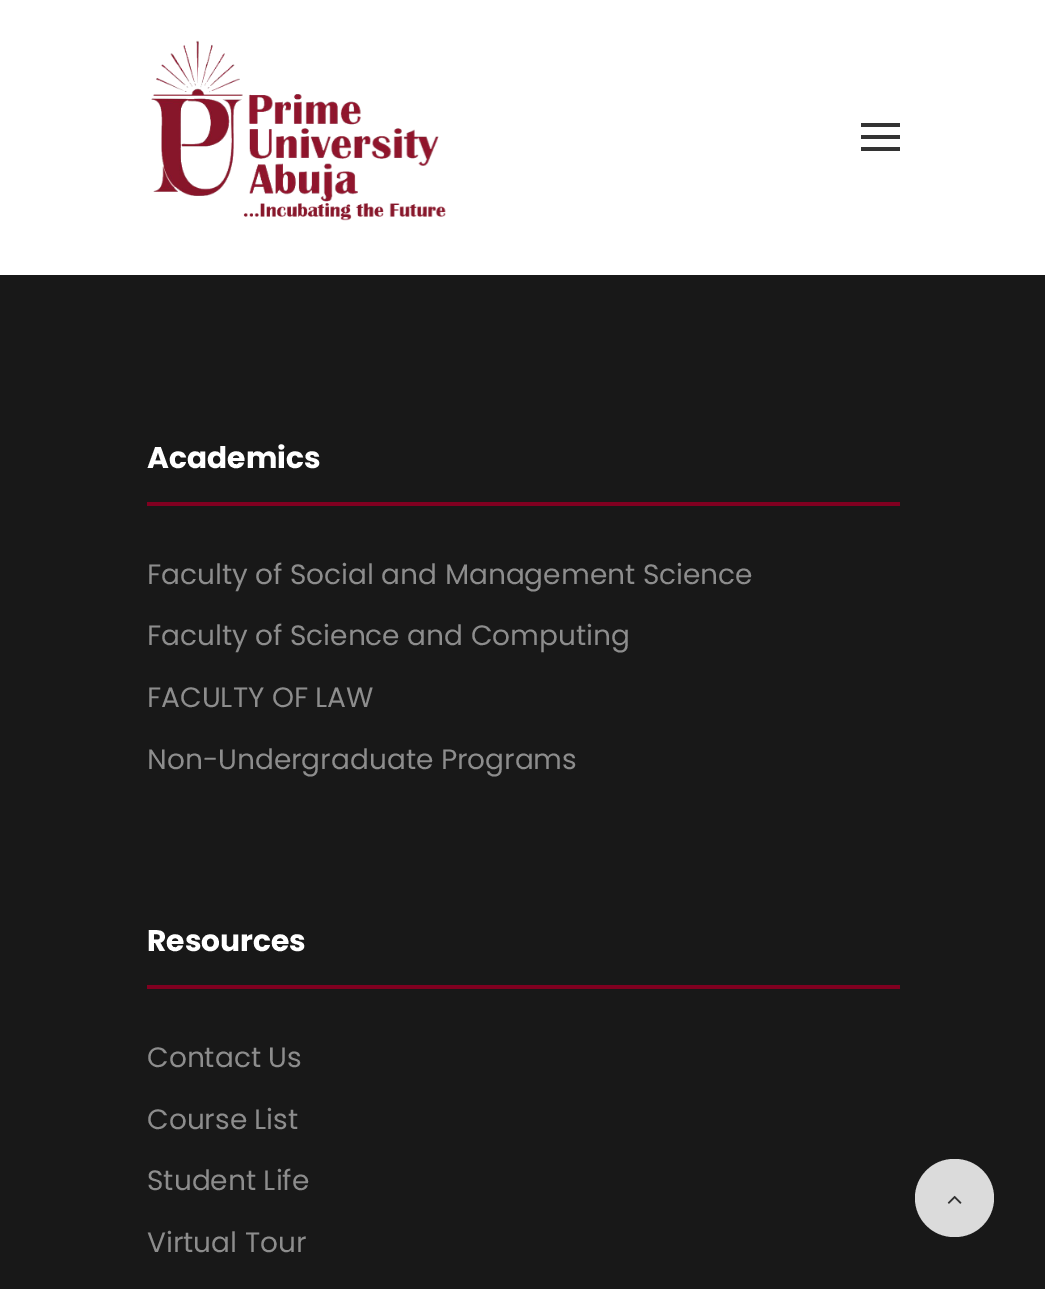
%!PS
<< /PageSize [1045 1289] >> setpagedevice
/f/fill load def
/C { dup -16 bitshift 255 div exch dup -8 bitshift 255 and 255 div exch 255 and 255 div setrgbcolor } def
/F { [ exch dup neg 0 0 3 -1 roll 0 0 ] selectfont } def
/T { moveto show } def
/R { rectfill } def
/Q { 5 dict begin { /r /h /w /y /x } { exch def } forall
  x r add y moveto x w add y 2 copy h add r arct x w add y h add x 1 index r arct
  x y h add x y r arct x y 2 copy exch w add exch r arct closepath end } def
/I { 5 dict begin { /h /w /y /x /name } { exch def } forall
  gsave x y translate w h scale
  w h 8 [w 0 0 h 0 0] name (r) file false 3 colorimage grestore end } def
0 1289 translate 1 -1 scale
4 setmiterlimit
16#181818 C
0 0 1045 1289 R
16#FFFFFF C
0 0 1045 275 R
(1.rgb) 151 40 295 181 I
16#333333 C
861 123 39 4 R
861 135 39 4 R
861 147 39 4 R
16#800020 C
147 502 753 4 R
/Poppins-Bold 29.75 F
16#FFFFFF C
(Academics) 147 468 T
/Poppins-Regular 28 F
16#8D8D8D C
(Faculty of Social and Management Science) 147 584 T
(Faculty of Science and Computing) 147 645 T
(FACULTY OF LAW) 147 707 T
(Non-Undergraduate Programs) 147 769 T
16#800020 C
147 985 753 4 R
/Poppins-Bold 29.75 F
16#FFFFFF C
(Resources) 147 951 T
/Poppins-Regular 28 F
16#8D8D8D C
(Contact Us) 147 1067 T
(Course List) 147 1129 T
(Student Life) 147 1190 T
(Virtual Tour) 147 1252 T
16#DBDBDB C
915 1159 79 78 39 Q f
(2.rgb) 947 1195 15 9 I
showpage
